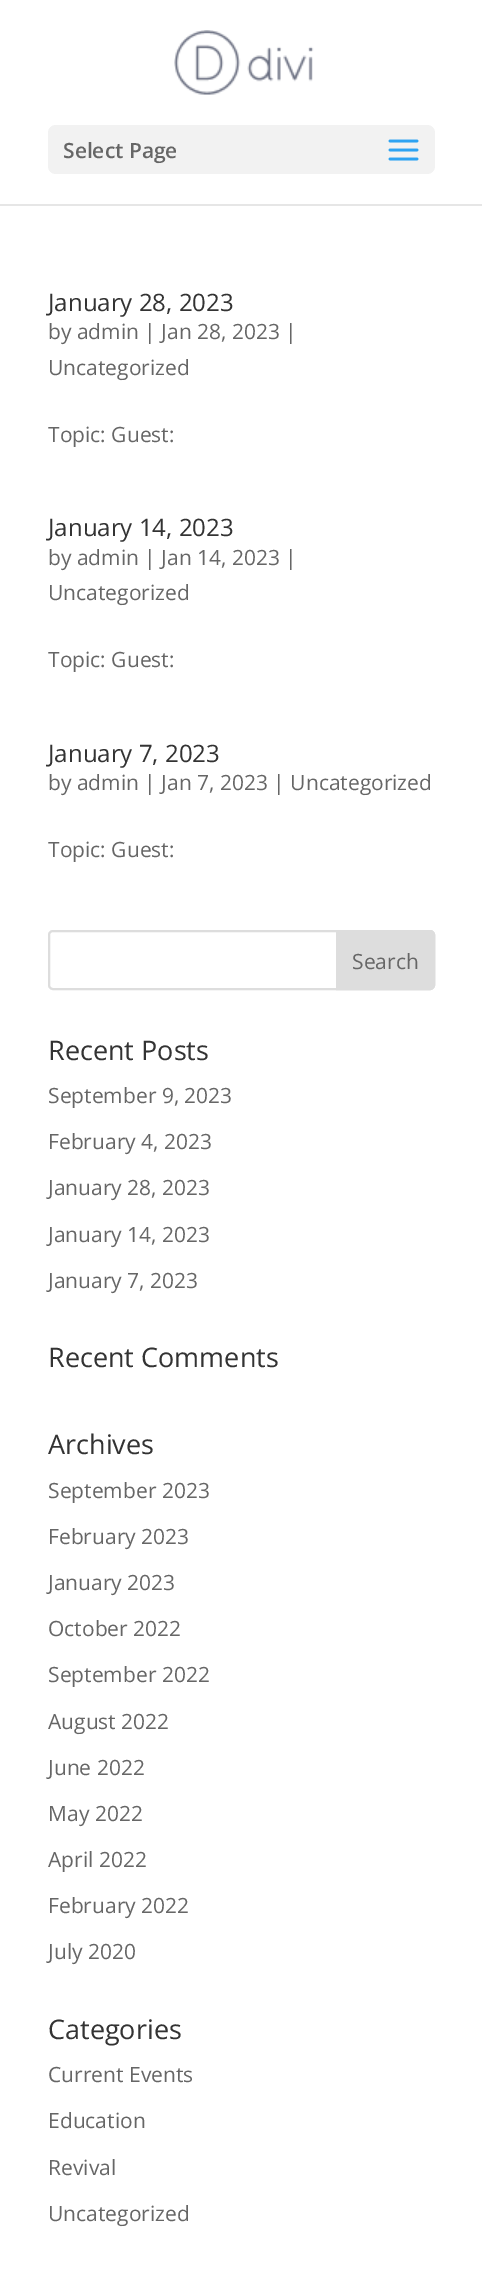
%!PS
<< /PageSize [482 2275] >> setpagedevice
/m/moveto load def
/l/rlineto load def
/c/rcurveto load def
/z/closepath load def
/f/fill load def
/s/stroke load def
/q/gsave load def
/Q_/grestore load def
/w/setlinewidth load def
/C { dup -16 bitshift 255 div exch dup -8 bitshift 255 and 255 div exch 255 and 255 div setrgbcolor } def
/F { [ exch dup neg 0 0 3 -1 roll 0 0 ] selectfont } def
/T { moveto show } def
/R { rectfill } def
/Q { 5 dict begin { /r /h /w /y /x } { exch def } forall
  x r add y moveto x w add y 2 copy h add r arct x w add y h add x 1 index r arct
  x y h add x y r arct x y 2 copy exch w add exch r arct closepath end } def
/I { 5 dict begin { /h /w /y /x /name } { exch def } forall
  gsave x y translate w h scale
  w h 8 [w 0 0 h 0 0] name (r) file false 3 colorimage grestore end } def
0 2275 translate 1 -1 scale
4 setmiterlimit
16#FFFFFF C
0 0 482 2275 R
16#E6E6E6 C
0 204 482 2 R
(1.rgb) 174 30 140 65 I
16#F2F2F2 C
48 125 387 49 8 Q f
/OpenSans-SemiBold 21 F
16#666666 C
(Select Page) 63 158 T
(2.rgb) 388 139 31 22 I
/OpenSans-Regular 24 F
16#333333 C
(January 28, 2023) 48 311 T
/OpenSans-Regular 21 F
16#666666 C
(by admin | Jan 28, 2023 |) 48 339 T
(Uncategorized) 48 375 T
(Topic: Guest:) 48 442 T
/OpenSans-Regular 24 F
16#333333 C
(January 14, 2023) 48 536 T
/OpenSans-Regular 21 F
16#666666 C
(by admin | Jan 14, 2023 |) 48 565 T
(Uncategorized) 48 600 T
(Topic: Guest:) 48 667 T
/OpenSans-Regular 24 F
16#333333 C
(January 7, 2023) 48 762 T
/OpenSans-Regular 21 F
16#666666 C
(by admin | Jan 7, 2023 | Uncategorized) 48 790 T
(Topic: Guest:) 48 857 T
16#DDDDDD C
2 w
49 931 385 58 4 Q s
337 931 m 93 0 l 2 0 4 2 4 4 c 0 50 l 0 2 -2 4 -4 4 c -93 0 l z q f Q_
s
16#666666 C
(Search) 352 969 T
/OpenSans-Regular 27 F
16#333333 C
(Recent Posts) 48 1060 T
/OpenSans-Regular 21 F
16#666666 C
(September 9, 2023) 48 1103 T
(February 4, 2023) 48 1149 T
(January 28, 2023) 48 1195 T
(January 14, 2023) 48 1242 T
(January 7, 2023) 48 1288 T
/OpenSans-Regular 27 F
16#333333 C
(Recent Comments) 48 1367 T
(Archives) 48 1454 T
/OpenSans-Regular 21 F
16#666666 C
(September 2023) 48 1498 T
(February 2023) 48 1544 T
(January 2023) 48 1590 T
(October 2022) 48 1636 T
(September 2022) 48 1682 T
(August 2022) 48 1729 T
(June 2022) 48 1775 T
(May 2022) 48 1821 T
(April 2022) 48 1867 T
(February 2022) 48 1913 T
(July 2020) 48 1959 T
/OpenSans-Regular 27 F
16#333333 C
(Categories) 48 2039 T
/OpenSans-Regular 21 F
16#666666 C
(Current Events) 48 2082 T
(Education) 48 2128 T
(Revival) 48 2175 T
(Uncategorized) 48 2221 T
showpage
